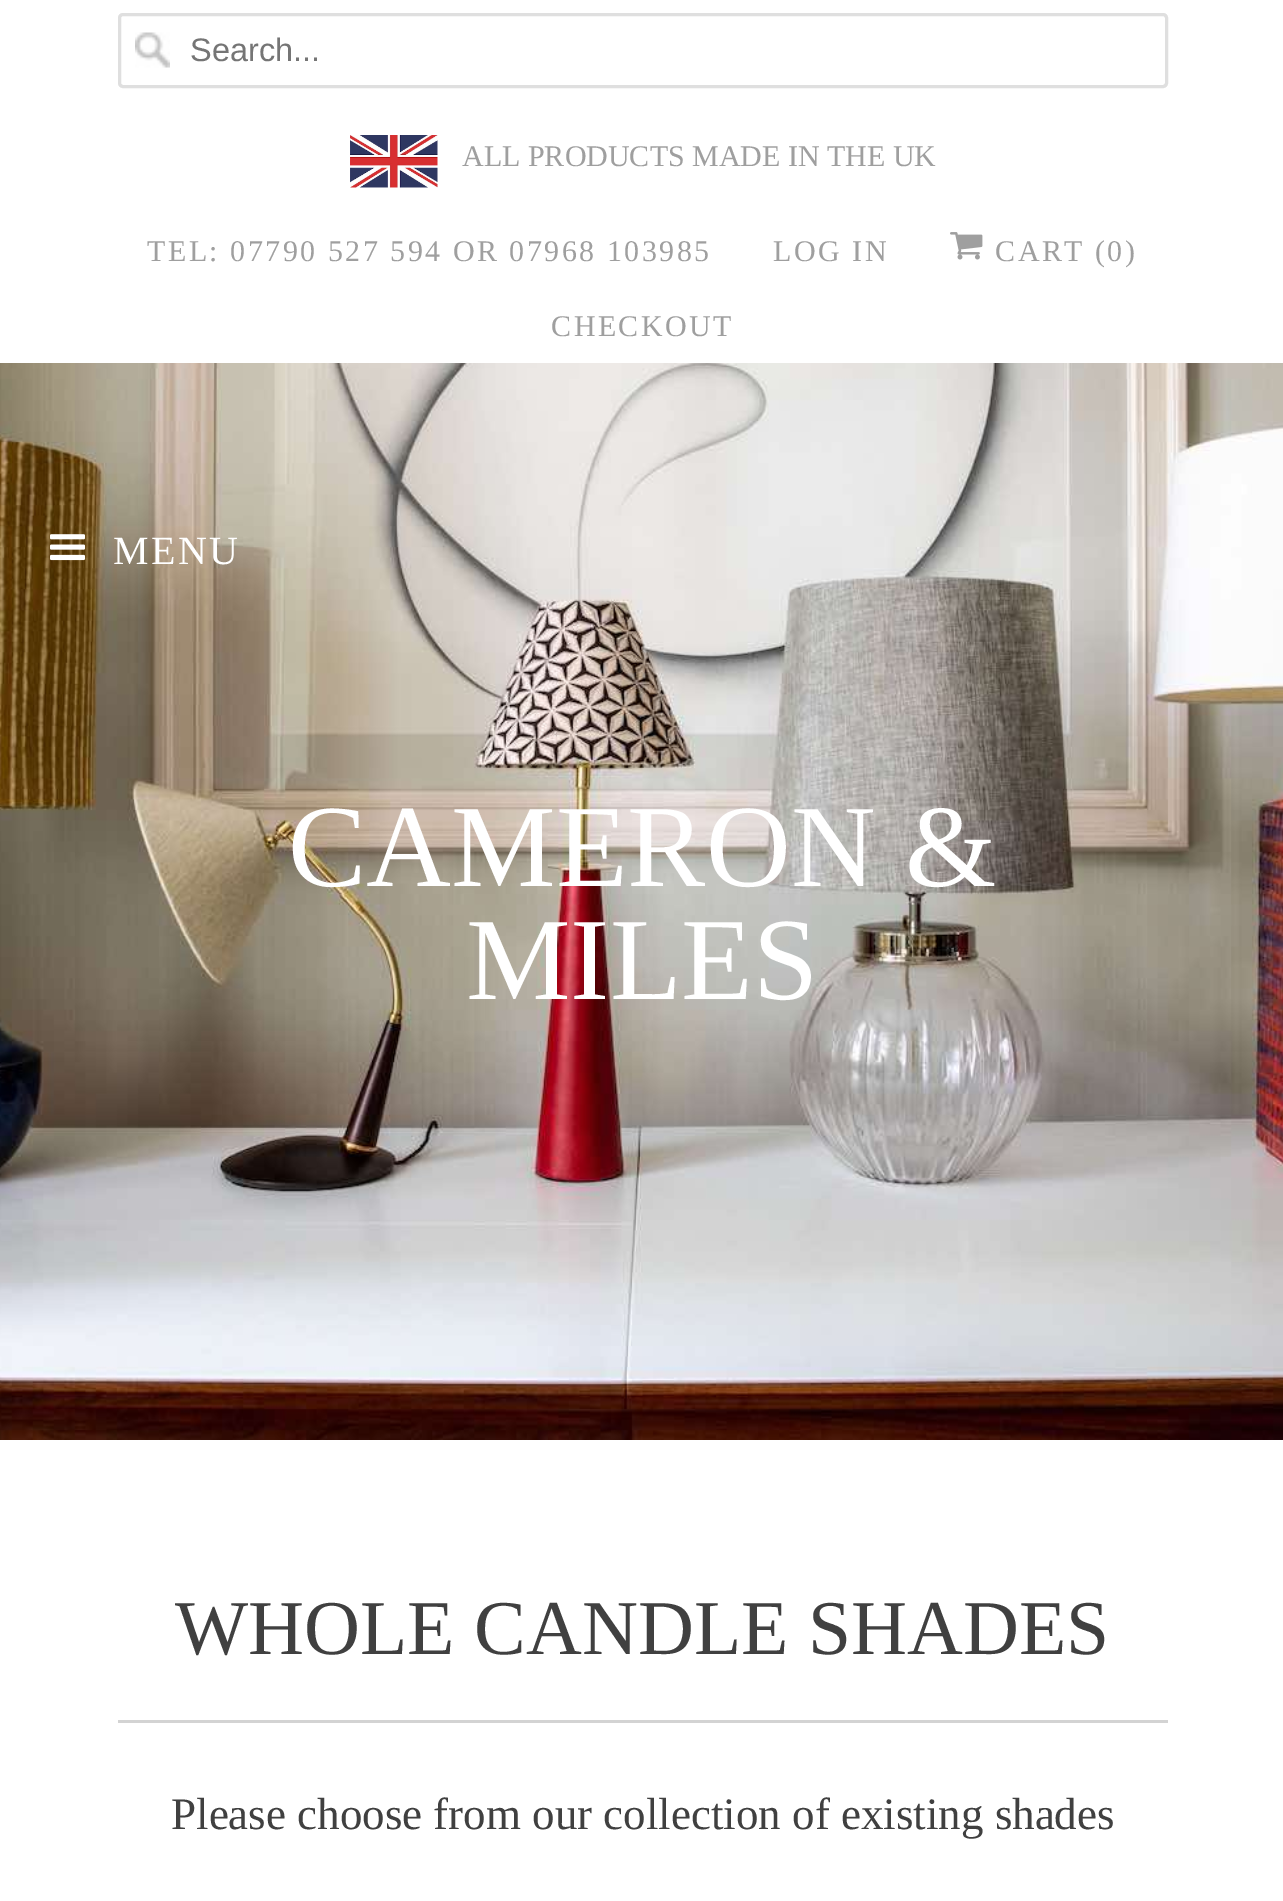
%!PS
<< /PageSize [1283 1901] >> setpagedevice
/m/moveto load def
/s/stroke load def
/w/setlinewidth load def
/C { dup -16 bitshift 255 div exch dup -8 bitshift 255 and 255 div exch 255 and 255 div setrgbcolor } def
/F { [ exch dup neg 0 0 3 -1 roll 0 0 ] selectfont } def
/T { moveto show } def
/R { rectfill } def
/Q { 5 dict begin { /r /h /w /y /x } { exch def } forall
  x r add y moveto x w add y 2 copy h add r arct x w add y h add x 1 index r arct
  x y h add x y r arct x y 2 copy exch w add exch r arct closepath end } def
/I { 5 dict begin { /h /w /y /x /name } { exch def } forall
  gsave x y translate w h scale
  w h 8 [w 0 0 h 0 0] name (r) file false 3 colorimage grestore end } def
0 1901 translate 1 -1 scale
4 setmiterlimit
16#FFFFFF C
0 0 1283 1901 R
(1.rgb) 0 363 1283 1077 I
(2.rgb) 135 32 35 36 I
16#DFDFDF C
3 w
119.5 14.5 1047 72 3.5 Q s
/LiberationSans-Regular 32.5 F
16#757575 C
(Search...) 190 61 T
(3.rgb) 350 135 88 53 I
/LiberationSerif-Regular 30 F
16#9F9F9F C
(ALL PRODUCTS MADE IN THE UK) 462 166 T
147 261 m 2.5 0 (TEL: 07790 527 594 OR 07968 103985) ashow
773 261 m 2.5 0 (LOG IN) ashow
(4.rgb) 950 232 33 28 I
995 261 m 2.5 0 (CART \(0\)) ashow
551 336 m 2.5 0 (CHECKOUT) ashow
(5.rgb) 50 534 35 27 I
/LiberationSerif-Regular 40 F
16#FFFFFF C
113 564 m 2.5 0 (MENU) ashow
/LiberationSerif-Regular 117.5 F
(CAMERON &) 288 886 T
(MILES) 466 999 T
16#D3D3D3 C
118 1720 1050 3 R
/LiberationSerif-Regular 77.5 F
16#404040 C
(WHOLE CANDLE SHADES) 175 1654 T
/LiberationSerif-Regular 45 F
(Please choose from our collection of existing shades) 171 1829 T
showpage
